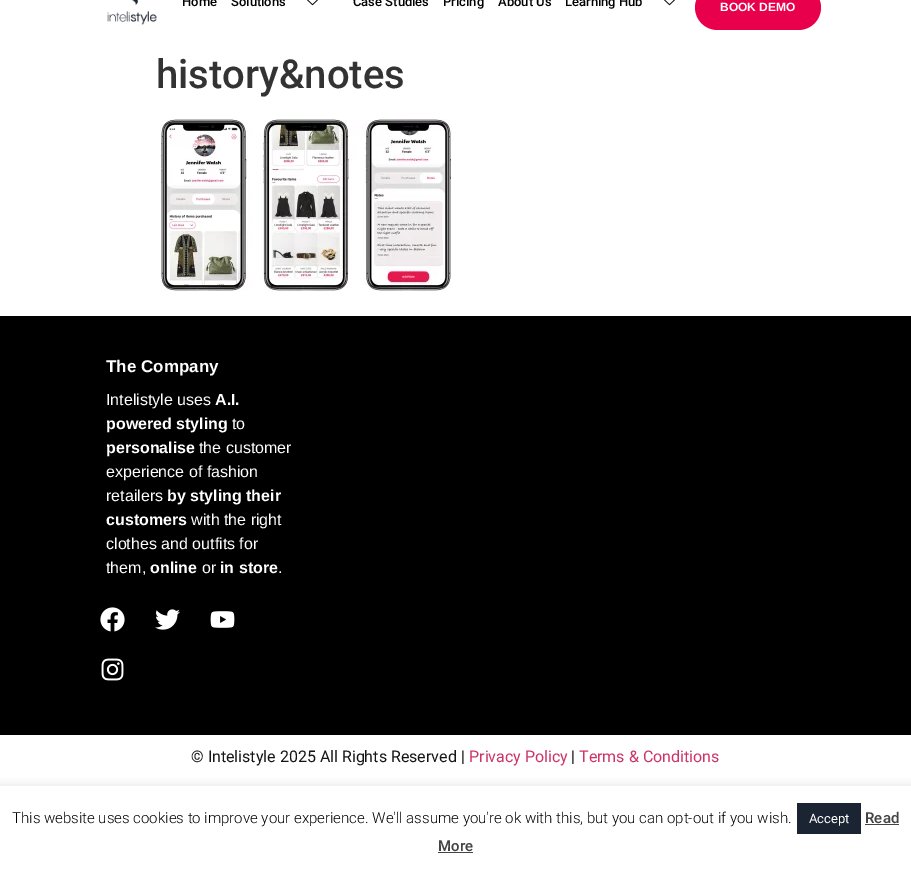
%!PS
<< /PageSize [911 869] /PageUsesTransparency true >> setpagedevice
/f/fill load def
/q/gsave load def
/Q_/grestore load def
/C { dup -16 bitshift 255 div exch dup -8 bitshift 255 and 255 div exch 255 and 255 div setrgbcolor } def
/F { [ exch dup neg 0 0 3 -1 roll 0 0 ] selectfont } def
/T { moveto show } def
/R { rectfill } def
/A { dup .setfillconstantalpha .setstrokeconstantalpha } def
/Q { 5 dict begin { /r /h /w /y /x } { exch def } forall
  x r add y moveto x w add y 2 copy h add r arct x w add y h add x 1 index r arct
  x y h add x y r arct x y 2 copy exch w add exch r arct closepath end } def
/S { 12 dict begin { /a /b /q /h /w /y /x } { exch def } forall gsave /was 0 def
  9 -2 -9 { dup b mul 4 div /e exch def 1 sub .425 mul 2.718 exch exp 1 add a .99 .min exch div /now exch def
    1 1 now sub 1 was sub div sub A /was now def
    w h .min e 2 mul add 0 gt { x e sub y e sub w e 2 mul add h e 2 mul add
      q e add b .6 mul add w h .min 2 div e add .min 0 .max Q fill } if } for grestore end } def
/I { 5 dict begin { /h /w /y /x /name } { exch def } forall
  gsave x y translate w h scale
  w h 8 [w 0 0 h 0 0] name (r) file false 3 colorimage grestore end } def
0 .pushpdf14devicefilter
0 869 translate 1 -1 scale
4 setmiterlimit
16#FFFFFF C
0 0 911 869 R
(1.rgb) 107 0 50 25 I
/Roboto-Medium 13 F
16#000000 C
(Home) 182 6 T
(Solutions) 231 6 T
(2.rgb) 307 0 11 6 I
(Case Studies) 353 6 T
(Pricing) 443 6 T
(About Us) 498 6 T
(Learning Hub) 565 6 T
(2.rgb) 664 0 11 6 I
16#E8004C C
695 -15 126 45 22.5 Q f
/LiberationSans-Bold 12 F
16#FFFFFF C
(BOOK DEMO) 720 11 T
/Roboto-Medium 40 F
16#333333 C
(history&notes) 156 88 T
(3.rgb) 160 119 292 172 I
16#000000 C
0 316 911 419 R
/LiberationSans-Bold 17 F
16#FFFFFF C
(The Company) 106 372 T
/LiberationSans-Regular 16 F
(Intelistyle uses) 106 405 T
/LiberationSans-Bold 16 F
(A.I.) 215 405 T
(powered styling) 106 429 T
/LiberationSans-Regular 16 F
(to) 232 429 T
/LiberationSans-Bold 16 F
(personalise) 106 453 T
/LiberationSans-Regular 16 F
(the customer) 199 453 T
(experience of fashion) 106 477 T
(retailers) 106 501 T
/LiberationSans-Bold 16 F
(by styling their) 167 501 T
(customers) 106 525 T
/LiberationSans-Regular 16 F
(with the right) 191 525 T
(clothes and outfits for) 106 549 T
(them,) 106 573 T
/LiberationSans-Bold 16 F
(online) 150 573 T
/LiberationSans-Regular 16 F
(or) 202 573 T
/LiberationSans-Bold 16 F
(in store) 220 573 T
/LiberationSans-Regular 16 F
(.) 278 573 T
(4.rgb) 100 607 25 25 I
(5.rgb) 155 609 25 21 I
(6.rgb) 210 611 25 17 I
(7.rgb) 101 658 23 23 I
/Roboto-Regular 16 F
16#151515 C
(© Intelistyle 2025 All Rights Reserved |) 191 762 T
16#CC3366 C
(Privacy Policy) 469 762 T
16#151515 C
(|) 571 762 T
16#CC3366 C
(Terms & Conditions) 579 762 T
q
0 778 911 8 rectclip
16#ACABAB C
0 785 911 83 0 5 .3 S
Q_
/Roboto-Light 15 F
16#000000 C
(This website uses cookies to improve your experience. We'll assume you're ok with this, but you can opt-out if you wish.) 12 823 T
16#1B2432 C
797 803 64 31 R
/Roboto-Regular 13 F
16#FFFFFF C
(Accept) 809 823 T
/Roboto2-Medium 15 F
16#444444 C
(Read) 865 823 T
865 824 34 1 R
(More) 438 851 T
438 852 35 1 R
.poppdf14devicefilter showpage
